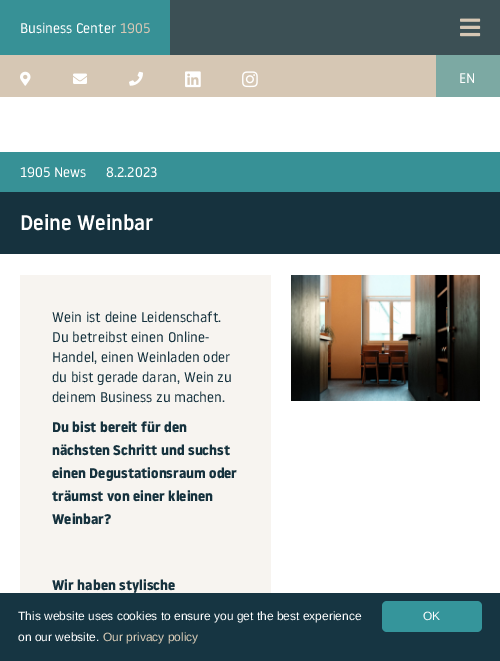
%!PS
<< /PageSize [500 661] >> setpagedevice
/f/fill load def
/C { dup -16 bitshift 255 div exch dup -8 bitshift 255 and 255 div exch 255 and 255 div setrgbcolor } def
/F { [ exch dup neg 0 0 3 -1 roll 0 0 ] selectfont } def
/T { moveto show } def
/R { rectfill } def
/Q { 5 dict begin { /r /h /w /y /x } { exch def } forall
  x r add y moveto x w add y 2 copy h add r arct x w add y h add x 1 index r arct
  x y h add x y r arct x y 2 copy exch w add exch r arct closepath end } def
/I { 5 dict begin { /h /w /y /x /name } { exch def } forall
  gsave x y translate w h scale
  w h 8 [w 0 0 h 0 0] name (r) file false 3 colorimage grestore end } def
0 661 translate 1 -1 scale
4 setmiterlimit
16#FFFFFF C
0 0 500 661 R
16#3C5055 C
170 0 330 55 R
16#379196 C
0 0 170 55 R
/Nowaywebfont-Regular 14 F
16#FFFFFF C
(Business Center) 20 33 T
16#D6C7B4 C
(1905) 120 33 T
(1.rgb) 460 18 21 19 I
0 55 436 42 R
(2.rgb) 20 71 11 15 I
(3.rgb) 73 73 14 11 I
(4.rgb) 129 71 14 15 I
(5.rgb) 185 71 16 17 I
(6.rgb) 242 71 16 17 I
16#7CA9A3 C
436 55 64 42 R
16#FFFFFF C
(EN) 459 83 T
16#379196 C
0 152 500 40 R
16#FFFFFF C
(1905 News) 20 177 T
(8.2.2023) 106 177 T
16#16323E C
0 192 500 62 R
/Nowaywebfont-Medium 21 F
16#FFFFFF C
(Deine Weinbar) 20 230 T
16#F7F4F0 C
20 275 251 318 R
/Nowaywebfont-Regular 14 F
16#16323E C
(Wein ist deine Leidenschaft.) 52 322 T
(Du betreibst einen Online-) 52 342 T
(Handel, einen Weinladen oder) 52 362 T
(du bist gerade daran, Wein zu) 52 382 T
(deinem Business zu machen.) 52 402 T
/Nowaywebfont-Bold 14 F
(Du bist bereit für den) 52 432 T
(nächsten Schritt und suchst) 52 455 T
(einen Degustationsraum oder) 52 478 T
(träumst von einer kleinen) 52 501 T
(Weinbar?) 52 524 T
(Wir haben stylische) 52 590 T
(7.rgb) 291 275 189 126 I
16#163542 C
0 593 500 68 R
/LiberationSans-Regular 12 F
16#FFFFFF C
(This website uses cookies to ensure you get the best experience) 18 620 T
(on our website.) 18 641 T
16#DACDB8 C
(Our privacy policy) 103 641 T
16#35959B C
382 601 100 31 5 Q f
16#FFFFFF C
(OK) 423 620 T
showpage
